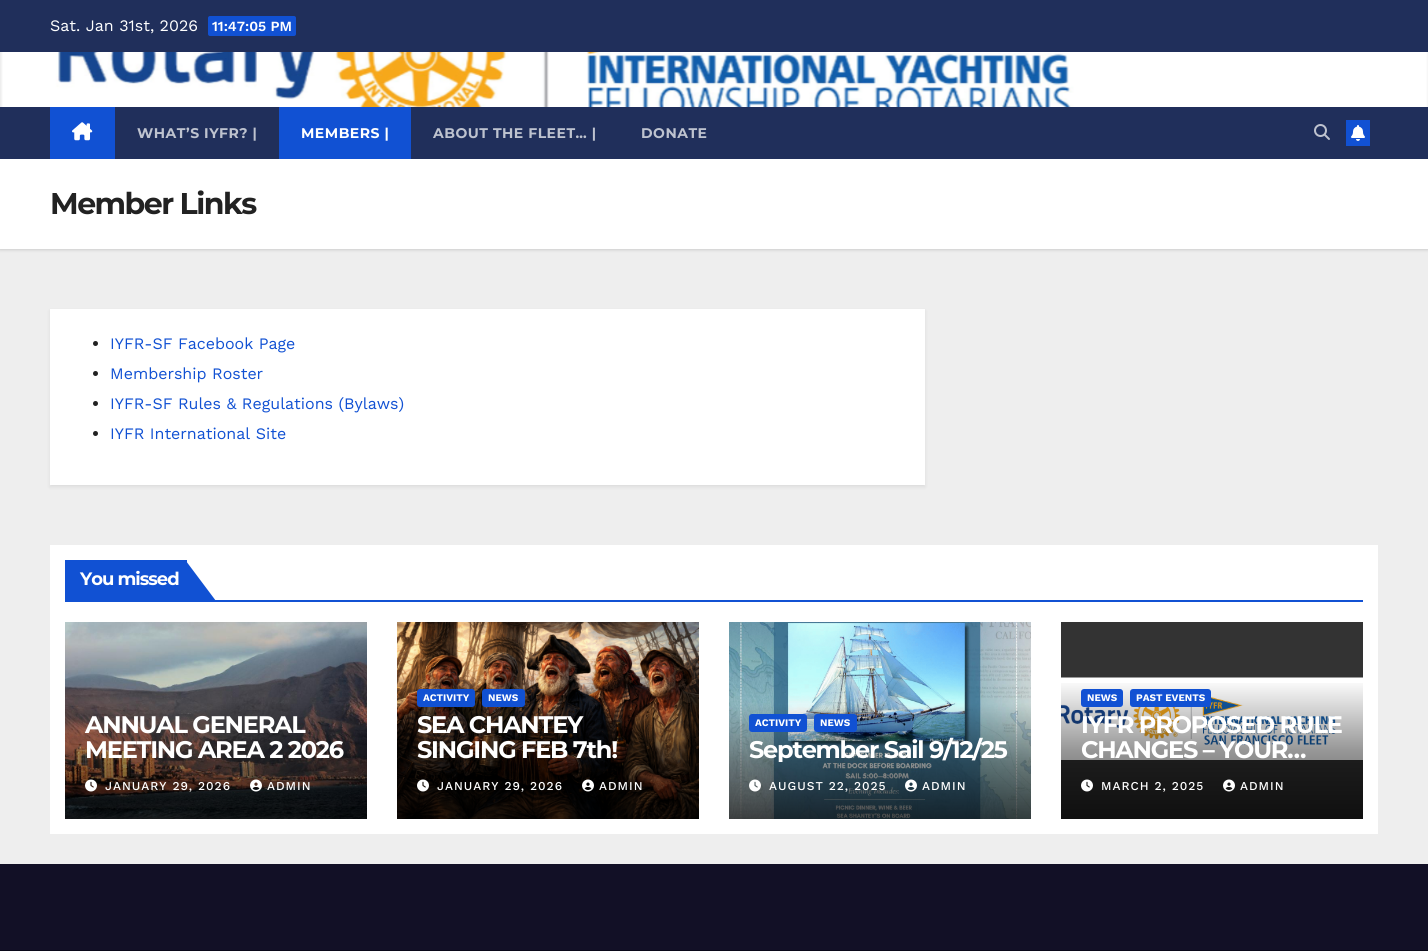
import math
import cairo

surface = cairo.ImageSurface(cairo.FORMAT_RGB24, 1428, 951)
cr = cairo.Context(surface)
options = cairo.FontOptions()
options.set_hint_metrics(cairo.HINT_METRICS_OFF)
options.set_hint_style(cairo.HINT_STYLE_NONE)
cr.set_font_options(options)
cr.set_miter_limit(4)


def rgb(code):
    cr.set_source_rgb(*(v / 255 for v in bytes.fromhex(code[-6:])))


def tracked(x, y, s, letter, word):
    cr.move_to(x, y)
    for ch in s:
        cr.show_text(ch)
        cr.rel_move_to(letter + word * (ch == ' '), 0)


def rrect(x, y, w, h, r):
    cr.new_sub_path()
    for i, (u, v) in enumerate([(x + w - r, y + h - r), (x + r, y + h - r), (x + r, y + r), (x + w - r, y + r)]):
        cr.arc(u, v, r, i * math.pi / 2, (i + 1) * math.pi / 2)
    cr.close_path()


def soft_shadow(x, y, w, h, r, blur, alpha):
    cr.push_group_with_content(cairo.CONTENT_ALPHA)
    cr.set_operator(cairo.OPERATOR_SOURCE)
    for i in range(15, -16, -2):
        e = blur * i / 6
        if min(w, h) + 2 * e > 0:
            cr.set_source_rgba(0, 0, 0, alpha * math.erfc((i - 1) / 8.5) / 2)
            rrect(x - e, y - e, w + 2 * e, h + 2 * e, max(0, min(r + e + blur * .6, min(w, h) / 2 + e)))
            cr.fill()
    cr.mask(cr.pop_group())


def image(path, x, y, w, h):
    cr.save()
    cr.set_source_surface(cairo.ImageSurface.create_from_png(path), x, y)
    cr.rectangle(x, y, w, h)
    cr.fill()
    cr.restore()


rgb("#eeeeee")
cr.paint()
rgb("#202f5b")
cr.rectangle(0, 0, 1428, 52)
cr.fill()
rgb("#1151d3")
rrect(208, 16, 88, 20, 2)
cr.fill()
image("img/1.png", 1, 52, 1427, 55)
rgb("#000000")
soft_shadow(0, 160, 1428, 90, 0, 1.5, 0.15)
rgb("#202f5b")
cr.rectangle(0, 107, 1428, 52)
cr.fill()
rgb("#1151d3")
cr.rectangle(50, 107, 65, 52)
cr.fill()
image("img/2.png", 72, 122, 21, 19)
cr.rectangle(279, 107, 132, 52)
cr.fill()
image("img/3.png", 1314, 124, 16, 16)
cr.rectangle(1346, 120, 24, 26)
cr.fill()
image("img/4.png", 1351, 125, 14, 16)
rgb("#ffffff")
cr.rectangle(0, 159, 1428, 90)
cr.fill()
rgb("#000000")
soft_shadow(50, 311, 875, 176, 0, 2, 0.08)
rgb("#ffffff")
cr.rectangle(50, 309, 875, 176)
cr.fill()
rgb("#222222")
cr.arc(95.5, 343.5, 2.5, 0, 2 * math.pi)
cr.fill()
cr.arc(95.5, 373.5, 2.5, 0, 2 * math.pi)
cr.fill()
cr.arc(95.5, 403.5, 2.5, 0, 2 * math.pi)
cr.fill()
cr.arc(95.5, 433.5, 2.5, 0, 2 * math.pi)
cr.fill()
for x, y, w, h, color in [
    (50, 545, 1328, 289, "#ffffff"),
    (65, 600, 1298, 2, "#1151d3"),
    (65, 560, 122, 40, "#1151d3"),
]:
    rgb(color)
    cr.rectangle(x, y, w, h)
    cr.fill()
cr.new_path()
cr.move_to(216, 601)
cr.line_to(186, 601)
cr.line_to(186, 561)
cr.close_path()
cr.fill()
image("img/5.png", 65, 622, 302, 197)
image("img/6.png", 85, 779, 12, 13)
image("img/7.png", 250, 779, 12, 13)
image("img/8.png", 397, 622, 302, 197)
rrect(417, 689, 58, 18, 3)
cr.fill()
rrect(482, 689, 43, 18, 3)
cr.fill()
image("img/9.png", 417, 779, 12, 13)
image("img/10.png", 582, 779, 12, 13)
image("img/11.png", 729, 622, 302, 197)
rrect(749, 714, 58, 18, 3)
cr.fill()
rrect(814, 714, 43, 18, 3)
cr.fill()
image("img/12.png", 749, 779, 12, 13)
image("img/13.png", 905, 779, 12, 13)
rgb("#333333")
cr.rectangle(1061, 622, 302, 197)
cr.fill()
image("img/14.png", 1061, 677, 302, 83)
gradient = cairo.LinearGradient(1212, 679, 1212, 819)
gradient.add_color_stop_rgba(0, 0, 0, 0, 0)
gradient.add_color_stop_rgba(0.5, 0, 0, 0, 0.4)
gradient.add_color_stop_rgba(1, 0, 0, 0, 0.7)
cr.set_source(gradient)
cr.rectangle(1061, 683, 302, 136)
cr.fill()
rgb("#1151d3")
rrect(1081, 689, 42, 18, 3)
cr.fill()
rrect(1130, 689, 81, 18, 3)
cr.fill()
image("img/15.png", 1081, 779, 12, 13)
image("img/16.png", 1223, 779, 12, 13)
rgb("#121026")
cr.rectangle(0, 864, 1428, 86)
cr.fill()
rgb("#090818")
cr.rectangle(0, 950, 1428, 1)
cr.fill()
cr.select_font_face("Work Sans")
cr.set_font_size(16)
rgb("#ffffff")
cr.move_to(50, 31)
cr.show_text("Sat. Jan 31st, 2026")
cr.select_font_face("Work Sans SemiBold")
cr.set_font_size(14)
cr.move_to(212, 31)
cr.show_text("11:47:05 PM")
cr.select_font_face("Montserrat", cairo.FONT_SLANT_NORMAL, cairo.FONT_WEIGHT_BOLD)
rgb("#bec3cf")
tracked(137, 138, "WHAT’S IYFR? |", 0.5, 0)
rgb("#ffffff")
tracked(301, 138, "MEMBERS |", 0.5, 0)
rgb("#bec3cf")
tracked(433, 138, "ABOUT THE FLEET… |", 0.5, 0)
tracked(641, 138, "DONATE", 0.5, 0)
cr.set_font_size(30)
rgb("#222222")
tracked(50, 214, "Member Links", -1.5, 0)
cr.select_font_face("Work Sans")
cr.set_font_size(16)
rgb("#1151d3")
for x, y, s in [
    (110, 349, "IYFR-SF Facebook Page"),
    (110, 379, "Membership Roster"),
    (110, 409, "IYFR-SF Rules & Regulations (Bylaws)"),
    (110, 439, "IYFR International Site"),
]:
    cr.move_to(x, y)
    cr.show_text(s)
cr.select_font_face("Montserrat", cairo.FONT_SLANT_NORMAL, cairo.FONT_WEIGHT_BOLD)
cr.set_font_size(18)
rgb("#ffffff")
tracked(80, 585, "You missed", -1, 0)
cr.set_font_size(24)
tracked(85, 733, "ANNUAL GENERAL", -1.2, 0)
tracked(85, 758, "MEETING AREA 2 2026", -1.2, 0)
cr.select_font_face("Work Sans Medium")
cr.set_font_size(12)
tracked(105, 790, "JANUARY 29, 2026", 1, 0)
tracked(267, 790, "ADMIN", 1, 0)
cr.select_font_face("Work Sans", cairo.FONT_SLANT_NORMAL, cairo.FONT_WEIGHT_BOLD)
cr.set_font_size(10)
cr.move_to(423, 701)
cr.show_text("ACTIVITY")
cr.move_to(488, 701)
cr.show_text("NEWS")
cr.select_font_face("Montserrat", cairo.FONT_SLANT_NORMAL, cairo.FONT_WEIGHT_BOLD)
cr.set_font_size(24)
tracked(417, 733, "SEA CHANTEY", -1.2, 0)
tracked(417, 758, "SINGING FEB 7th!", -1.2, 0)
cr.select_font_face("Work Sans Medium")
cr.set_font_size(12)
tracked(437, 790, "JANUARY 29, 2026", 1, 0)
tracked(599, 790, "ADMIN", 1, 0)
cr.select_font_face("Work Sans", cairo.FONT_SLANT_NORMAL, cairo.FONT_WEIGHT_BOLD)
cr.set_font_size(10)
cr.move_to(755, 726)
cr.show_text("ACTIVITY")
cr.move_to(820, 726)
cr.show_text("NEWS")
cr.save()
cr.rectangle(749, 737, 262, 25)
cr.clip()
cr.select_font_face("Montserrat", cairo.FONT_SLANT_NORMAL, cairo.FONT_WEIGHT_BOLD)
cr.set_font_size(24)
tracked(749, 758, "September Sail 9/12/25", -1.2, 0)
cr.restore()
cr.select_font_face("Work Sans Medium")
cr.set_font_size(12)
tracked(769, 790, "AUGUST 22, 2025", 1, 0)
tracked(922, 790, "ADMIN", 1, 0)
cr.select_font_face("Work Sans", cairo.FONT_SLANT_NORMAL, cairo.FONT_WEIGHT_BOLD)
cr.set_font_size(10)
cr.move_to(1087, 701)
cr.show_text("NEWS")
cr.move_to(1136, 701)
cr.show_text("PAST EVENTS")
cr.select_font_face("Montserrat", cairo.FONT_SLANT_NORMAL, cairo.FONT_WEIGHT_BOLD)
cr.set_font_size(24)
tracked(1081, 733, "IYFR PROPOSED RULE", -1.2, 0)
tracked(1081, 758, "CHANGES – YOUR…", -1.2, 0)
cr.select_font_face("Work Sans Medium")
cr.set_font_size(12)
tracked(1101, 790, "MARCH 2, 2025", 1, 0)
tracked(1240, 790, "ADMIN", 1, 0)
surface.write_to_png("page.png")
